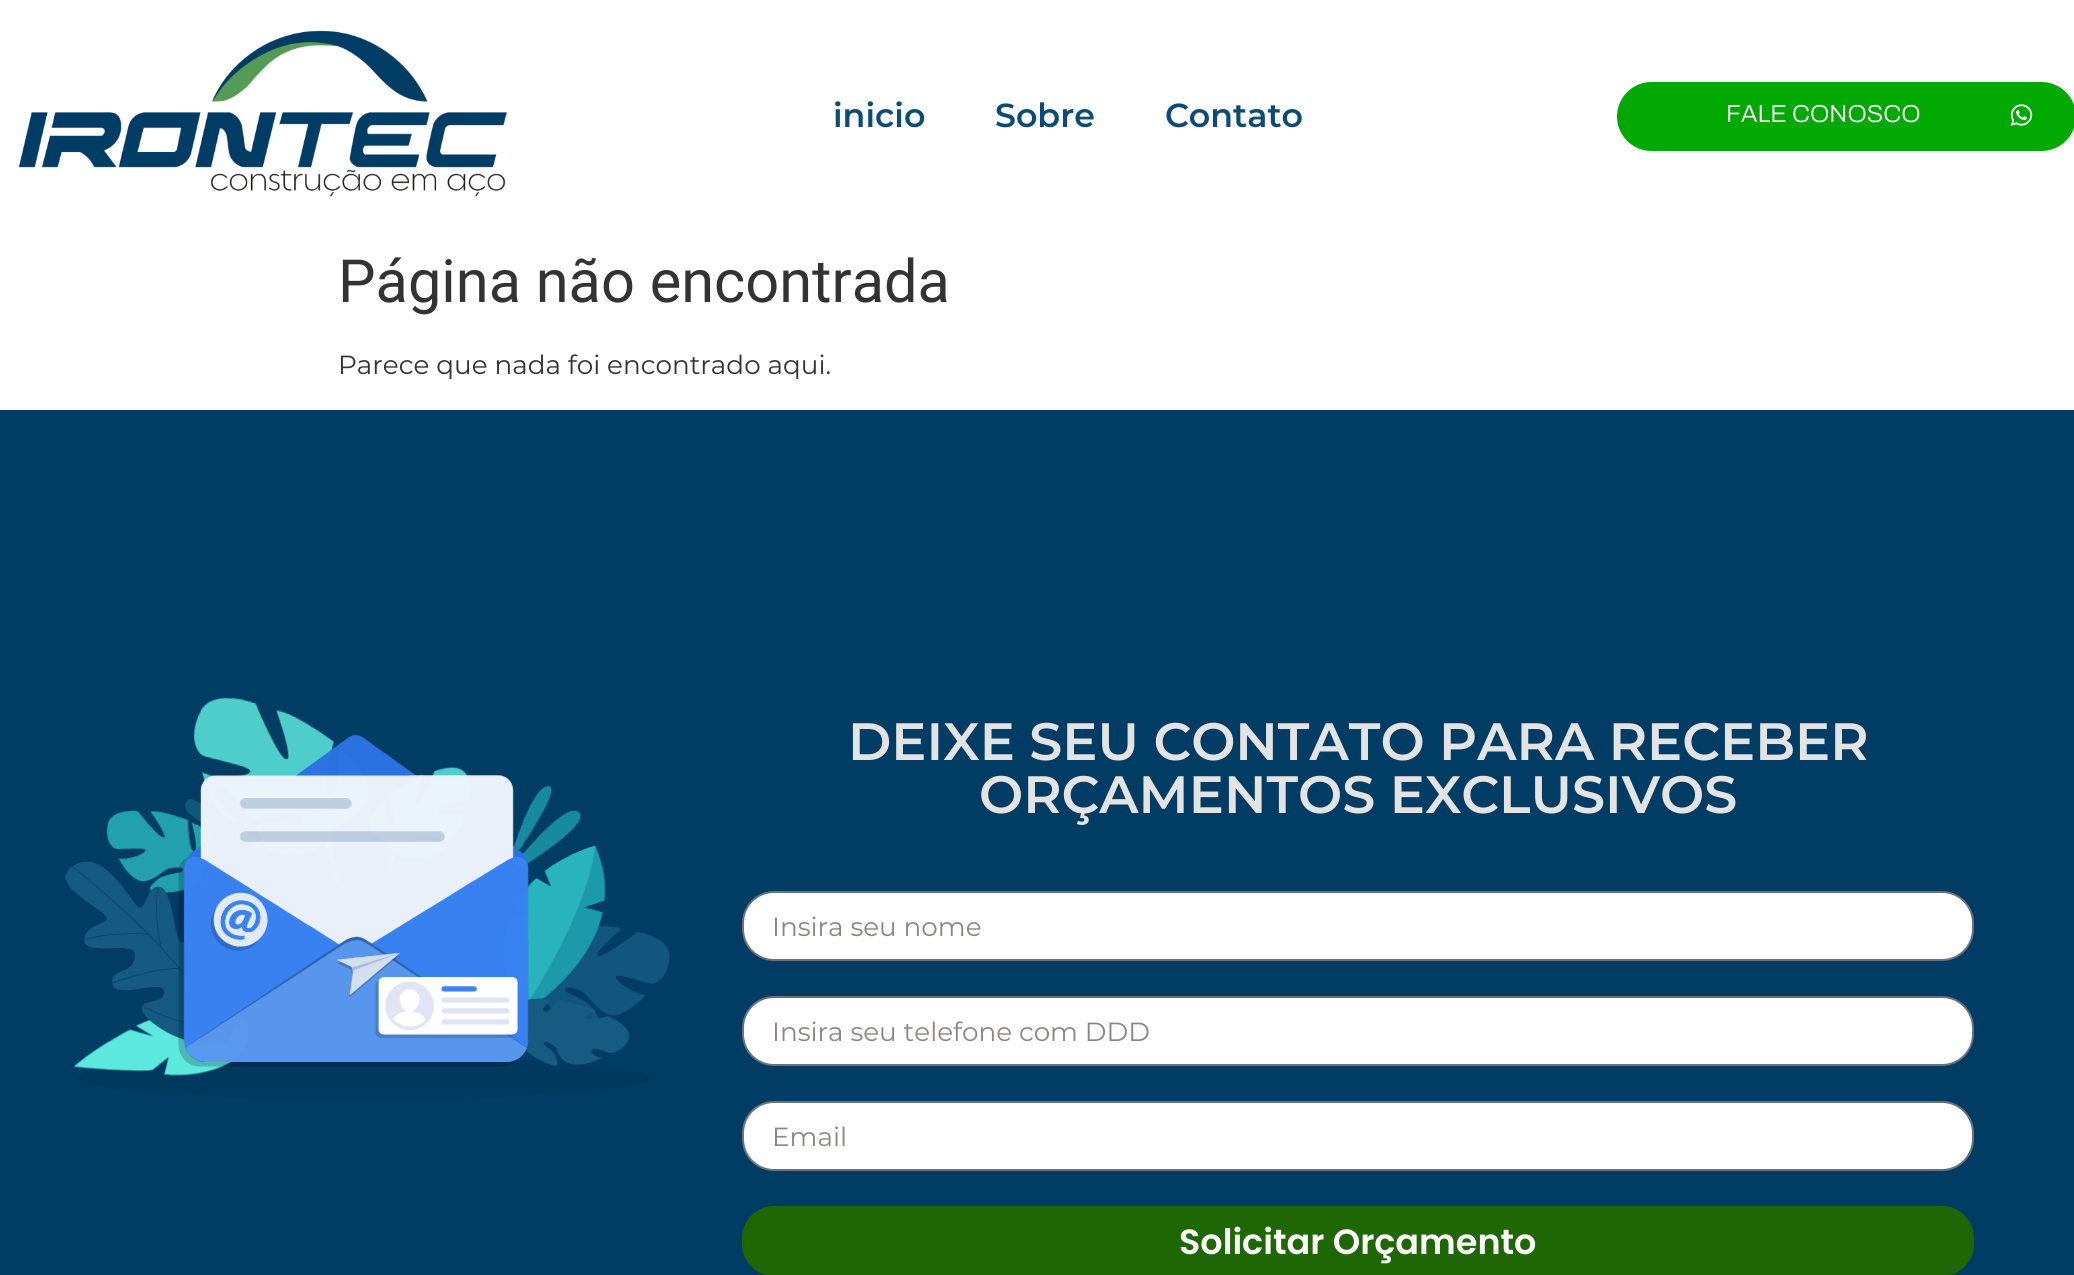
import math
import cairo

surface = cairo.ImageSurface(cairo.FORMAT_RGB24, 2074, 1275)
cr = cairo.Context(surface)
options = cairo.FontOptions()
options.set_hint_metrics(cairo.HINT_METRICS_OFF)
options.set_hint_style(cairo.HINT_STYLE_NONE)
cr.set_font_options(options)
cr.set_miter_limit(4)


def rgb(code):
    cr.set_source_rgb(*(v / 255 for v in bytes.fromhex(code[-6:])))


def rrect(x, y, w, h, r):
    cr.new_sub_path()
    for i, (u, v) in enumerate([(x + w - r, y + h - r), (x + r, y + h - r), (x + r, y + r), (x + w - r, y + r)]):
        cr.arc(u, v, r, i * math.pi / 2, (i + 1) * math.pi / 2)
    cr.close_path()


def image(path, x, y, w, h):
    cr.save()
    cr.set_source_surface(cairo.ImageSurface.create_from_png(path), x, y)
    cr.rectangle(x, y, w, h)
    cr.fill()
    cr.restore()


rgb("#ffffff")
cr.paint()
image("img/1.png", 18, 30, 489, 167)
rgb("#03a903")
rrect(1617, 82, 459, 69, 34.5)
cr.fill()
image("img/2.png", 2010, 104, 23, 22)
rgb("#003c64")
cr.rectangle(0, 410, 2074, 865)
cr.fill()
image("img/3.png", 65, 697, 605, 401)
rgb("#ffffff")
rrect(743, 892, 1230, 68, 31)
cr.fill_preserve()
rgb("#69727d")
cr.stroke()
rgb("#ffffff")
rrect(743, 997, 1230, 68, 31)
cr.fill_preserve()
rgb("#69727d")
cr.stroke()
rgb("#ffffff")
rrect(743, 1102, 1230, 68, 31)
cr.fill_preserve()
rgb("#69727d")
cr.stroke()
rgb("#1e6704")
rrect(742, 1206, 1232, 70, 32)
cr.fill()
cr.select_font_face("Montserrat SemiBold")
cr.set_font_size(33.25)
rgb("#0c4b76")
for x, y, s in [
    (833, 127, "inicio"),
    (995, 127, "Sobre"),
    (1165, 127, "Contato"),
]:
    cr.move_to(x, y)
    cr.show_text(s)
cr.select_font_face("Archivo Light")
cr.set_font_size(24.5)
rgb("#ffffff")
cr.move_to(1726, 122)
cr.show_text("FALE CONOSCO")
cr.select_font_face("Roboto")
cr.set_font_size(59.5)
rgb("#333333")
cr.move_to(338, 302)
cr.show_text("Página não encontrada")
cr.select_font_face("Montserrat")
cr.set_font_size(26.25)
cr.move_to(338, 374)
cr.show_text("Parece que nada foi encontrado aqui.")
cr.select_font_face("Montserrat SemiBold")
cr.set_font_size(52.5)
rgb("#e3e3e3")
cr.move_to(848, 760)
cr.show_text("DEIXE SEU CONTATO PARA RECEBER")
cr.move_to(979, 813)
cr.show_text("ORÇAMENTOS EXCLUSIVOS")
cr.select_font_face("Montserrat")
cr.set_font_size(26.25)
rgb("#8c8585")
for x, y, s in [
    (772, 936, "Insira seu nome"),
    (772, 1041, "Insira seu telefone com DDD"),
    (772, 1146, "Email"),
]:
    cr.move_to(x, y)
    cr.show_text(s)
cr.select_font_face("Poppins SemiBold")
cr.set_font_size(35)
rgb("#ffffff")
cr.move_to(1179, 1254)
cr.show_text("Solicitar Orçamento")
surface.write_to_png("page.png")
